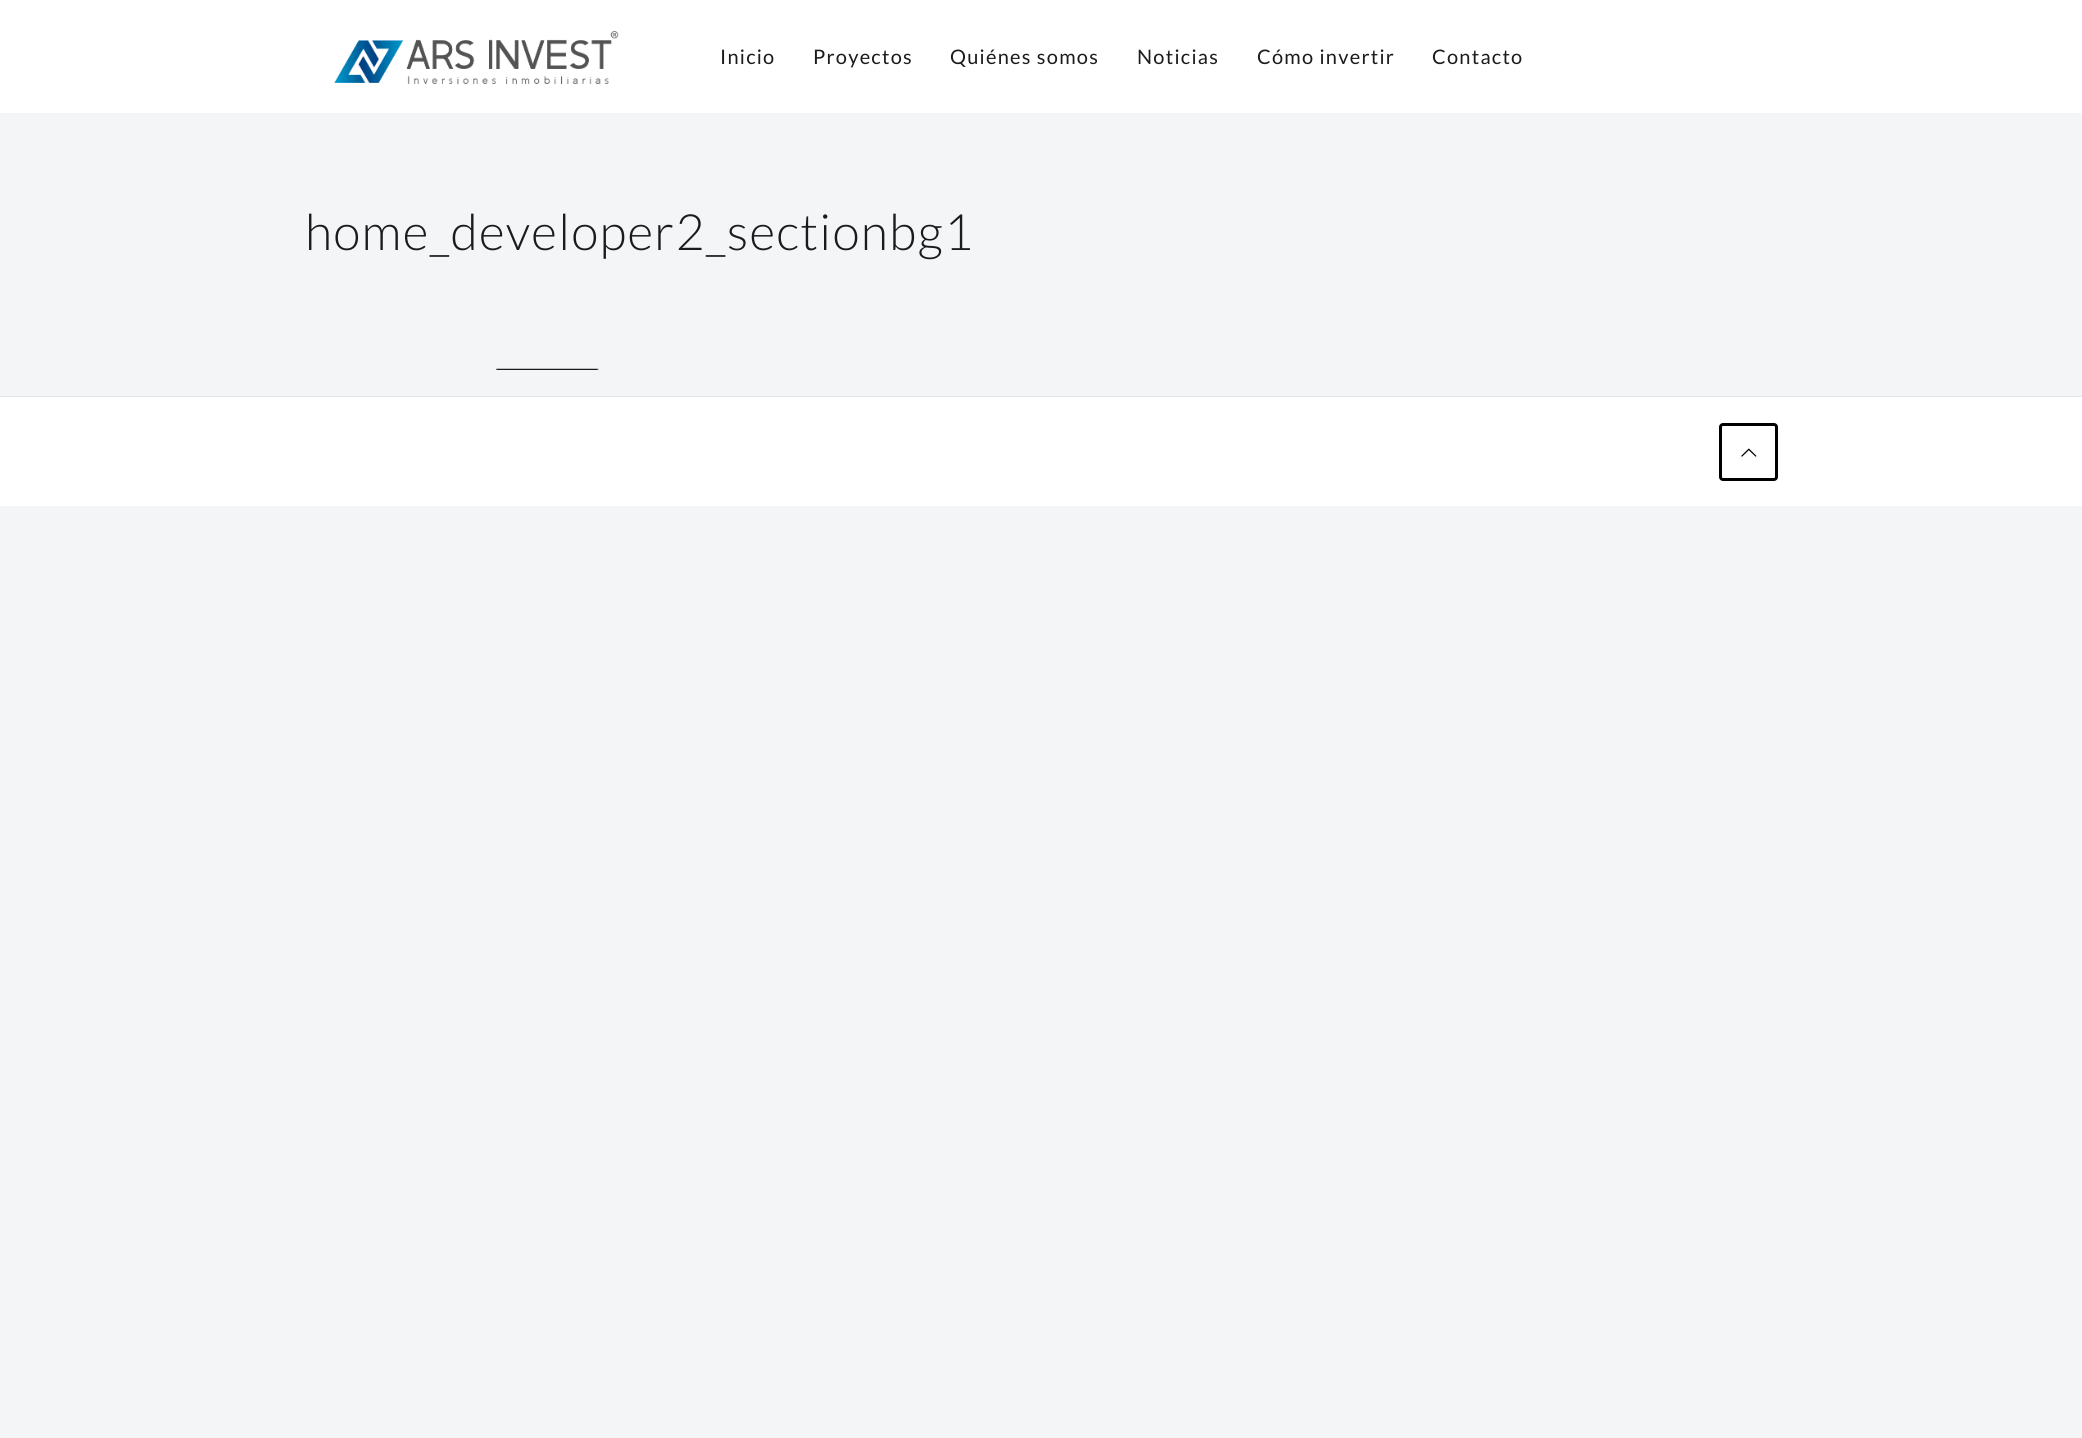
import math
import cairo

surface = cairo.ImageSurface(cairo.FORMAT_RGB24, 2082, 1438)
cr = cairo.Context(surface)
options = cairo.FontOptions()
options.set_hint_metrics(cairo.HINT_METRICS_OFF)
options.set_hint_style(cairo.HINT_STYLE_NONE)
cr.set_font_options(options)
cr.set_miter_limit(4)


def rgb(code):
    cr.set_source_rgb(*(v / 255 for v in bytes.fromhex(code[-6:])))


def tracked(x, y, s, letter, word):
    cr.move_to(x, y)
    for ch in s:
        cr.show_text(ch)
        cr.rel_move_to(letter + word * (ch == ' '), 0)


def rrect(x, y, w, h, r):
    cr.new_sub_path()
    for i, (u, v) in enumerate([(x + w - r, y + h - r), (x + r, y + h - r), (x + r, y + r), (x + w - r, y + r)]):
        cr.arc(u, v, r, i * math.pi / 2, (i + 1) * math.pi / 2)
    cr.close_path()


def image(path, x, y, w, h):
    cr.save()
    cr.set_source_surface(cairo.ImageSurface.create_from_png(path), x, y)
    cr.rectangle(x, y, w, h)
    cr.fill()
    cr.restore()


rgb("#f4f5f6")
cr.paint()
rgb("#ffffff")
cr.rectangle(0, 0, 2082, 113)
cr.fill()
image("img/1.png", 334, 31, 285, 53)
image("img/2.png", 496, 368, 103, 2)
cr.rectangle(0, 397, 2082, 109)
cr.fill()
rgb("#e6e6e6")
cr.rectangle(0, 396, 2082, 1)
cr.fill()
rrect(1720.5, 424.5, 56, 55, 2.5)
rgb("#000000")
cr.set_line_width(3)
cr.stroke()
image("img/3.png", 1741, 448, 16, 9)
cr.select_font_face("Lato")
cr.set_font_size(20)
rgb("#1b1b1c")
for x, y, s in [
    (720, 64, "Inicio"),
    (813, 64, "Proyectos"),
    (950, 64, "Quiénes somos"),
    (1137, 64, "Noticias"),
    (1257, 64, "Cómo invertir"),
    (1432, 64, "Contacto"),
]:
    tracked(x, y, s, 1.25, 0)
cr.select_font_face("Lato Light")
cr.set_font_size(50)
tracked(305, 250, "home_developer2_sectionbg1", 1.25, 0)
surface.write_to_png("page.png")
